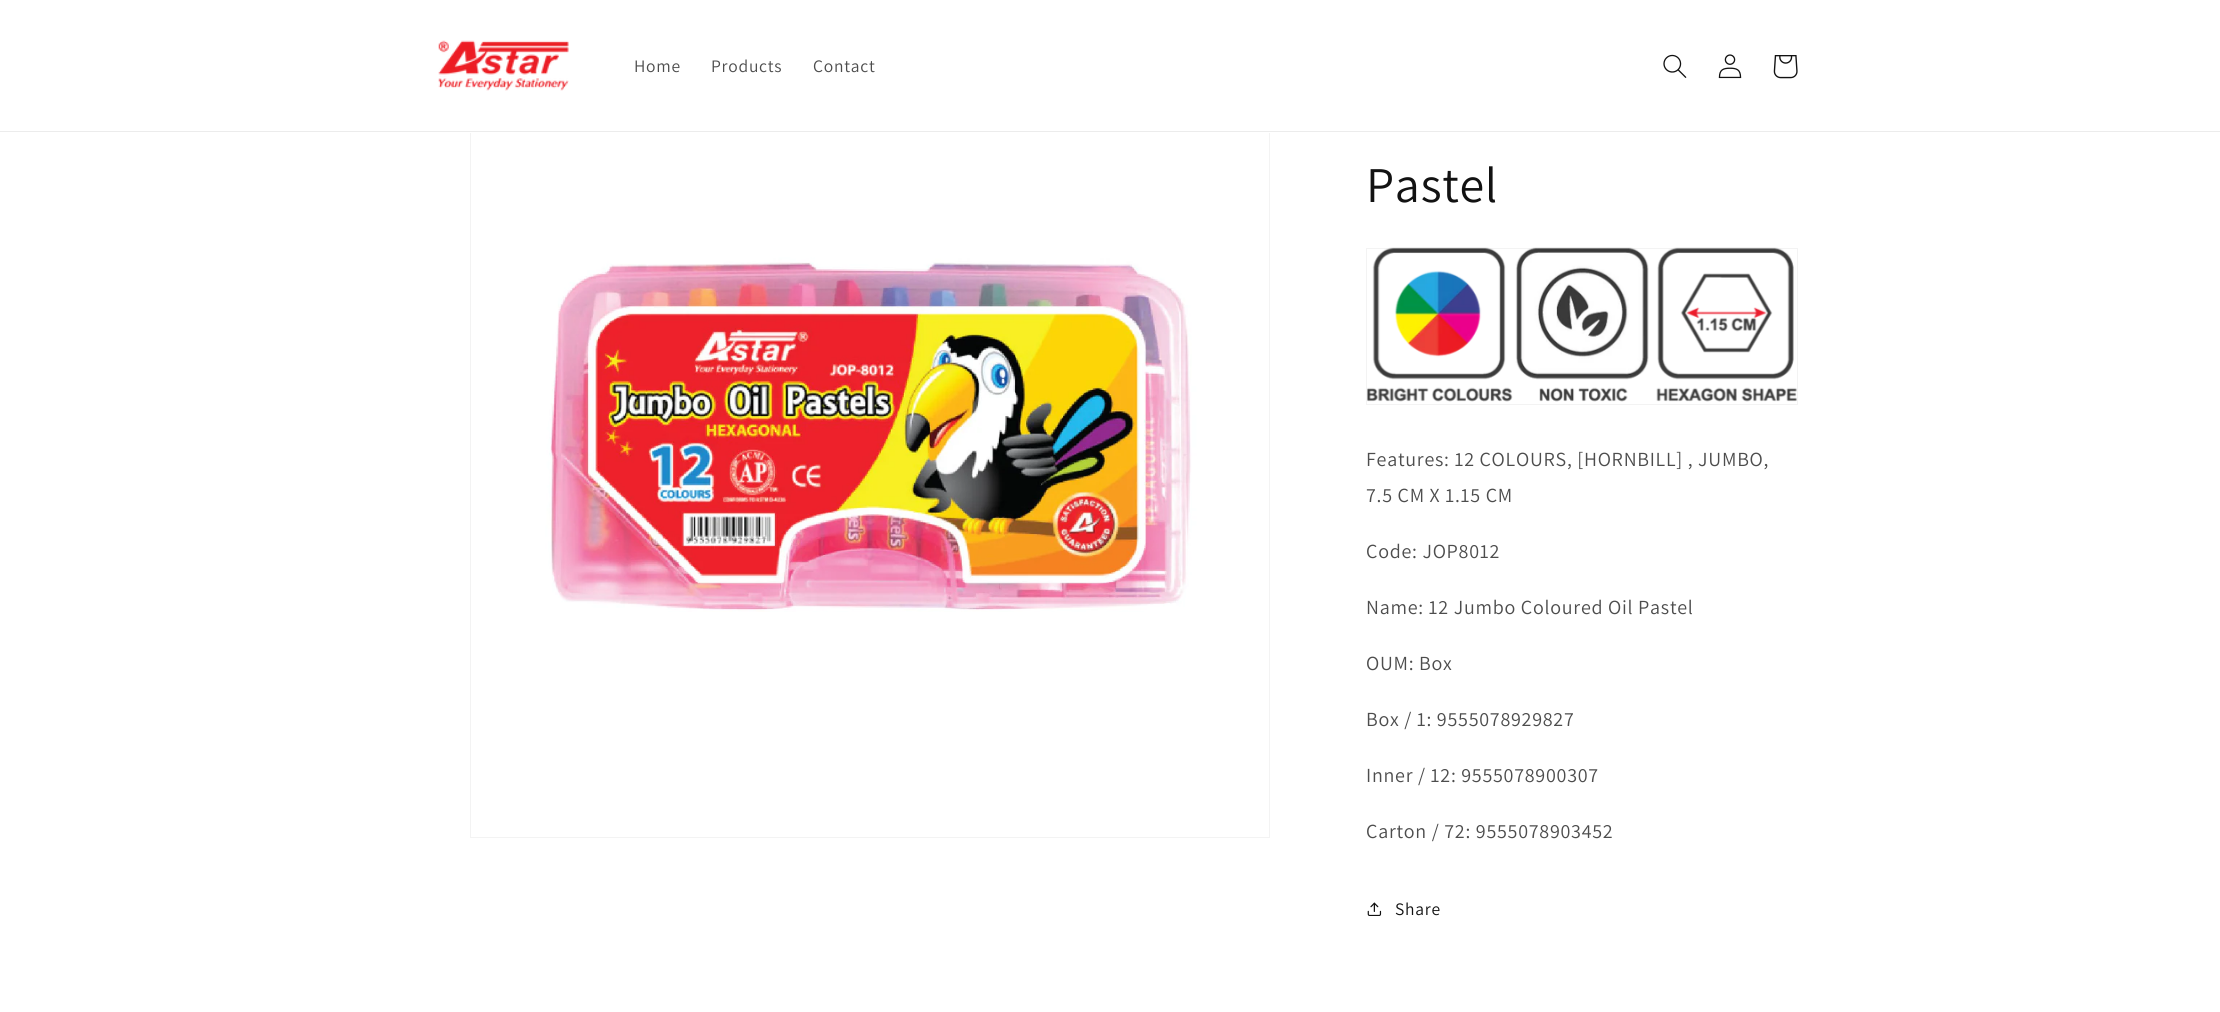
import math
import cairo

surface = cairo.ImageSurface(cairo.FORMAT_RGB24, 2220, 1012)
cr = cairo.Context(surface)
options = cairo.FontOptions()
options.set_hint_metrics(cairo.HINT_METRICS_OFF)
options.set_hint_style(cairo.HINT_STYLE_NONE)
cr.set_font_options(options)
cr.set_miter_limit(4)


def rgb(code):
    cr.set_source_rgb(*(v / 255 for v in bytes.fromhex(code[-6:])))


def tracked(x, y, s, letter, word):
    cr.move_to(x, y)
    for ch in s:
        cr.show_text(ch)
        cr.rel_move_to(letter + word * (ch == ' '), 0)


def image(path, x, y, w, h):
    cr.save()
    cr.set_source_surface(cairo.ImageSurface.create_from_png(path), x, y)
    cr.rectangle(x, y, w, h)
    cr.fill()
    cr.restore()


rgb("#ffffff")
cr.paint()
cr.rectangle(470.5, 38.5, 799, 799)
rgb("#f3f3f3")
cr.set_line_width(1)
cr.stroke()
rgb("#ffffff")
cr.rectangle(470, 38, 800, 95)
cr.fill()
rgb("#ececec")
cr.rectangle(0, 131, 2220, 1)
cr.fill()
image("img/1.png", 438, 40, 131, 51)
image("img/2.png", 1663, 54, 24, 24)
image("img/3.png", 1718, 54, 24, 25)
image("img/4.png", 1773, 55, 25, 24)
image("img/5.png", 471, 133, 798, 479)
cr.rectangle(1366.5, 248.5, 431, 156)
rgb("#f3f3f3")
cr.stroke()
image("img/6.png", 1367, 247, 430, 155)
image("img/7.png", 1367, 902, 15, 14)
cr.select_font_face("Assistant")
cr.set_font_size(17.5)
rgb("#4d4d4d")
for x, y, s in [
    (634, 72, "Home"),
    (711, 72, "Products"),
    (813, 72, "Contact"),
]:
    tracked(x, y, s, 0.75, 0)
cr.set_font_size(50)
rgb("#121212")
tracked(1366, 202, "Pastel", 0.75, 0)
cr.set_font_size(20)
rgb("#4d4d4d")
for x, y, s in [
    (1366, 466, "Features: 12 COLOURS, [HORNBILL] , JUMBO,"),
    (1366, 502, "7.5 CM X 1.15 CM"),
    (1366, 558, "Code: JOP8012"),
    (1366, 614, "Name: 12 Jumbo Coloured Oil Pastel"),
    (1366, 670, "OUM: Box"),
    (1366, 726, "Box / 1: 9555078929827"),
    (1366, 782, "Inner / 12: 9555078900307"),
    (1366, 838, "Carton / 72: 9555078903452"),
]:
    tracked(x, y, s, 0.75, 0)
cr.set_font_size(17.5)
rgb("#121212")
tracked(1395, 915, "Share", 0.75, 0)
surface.write_to_png("page.png")
